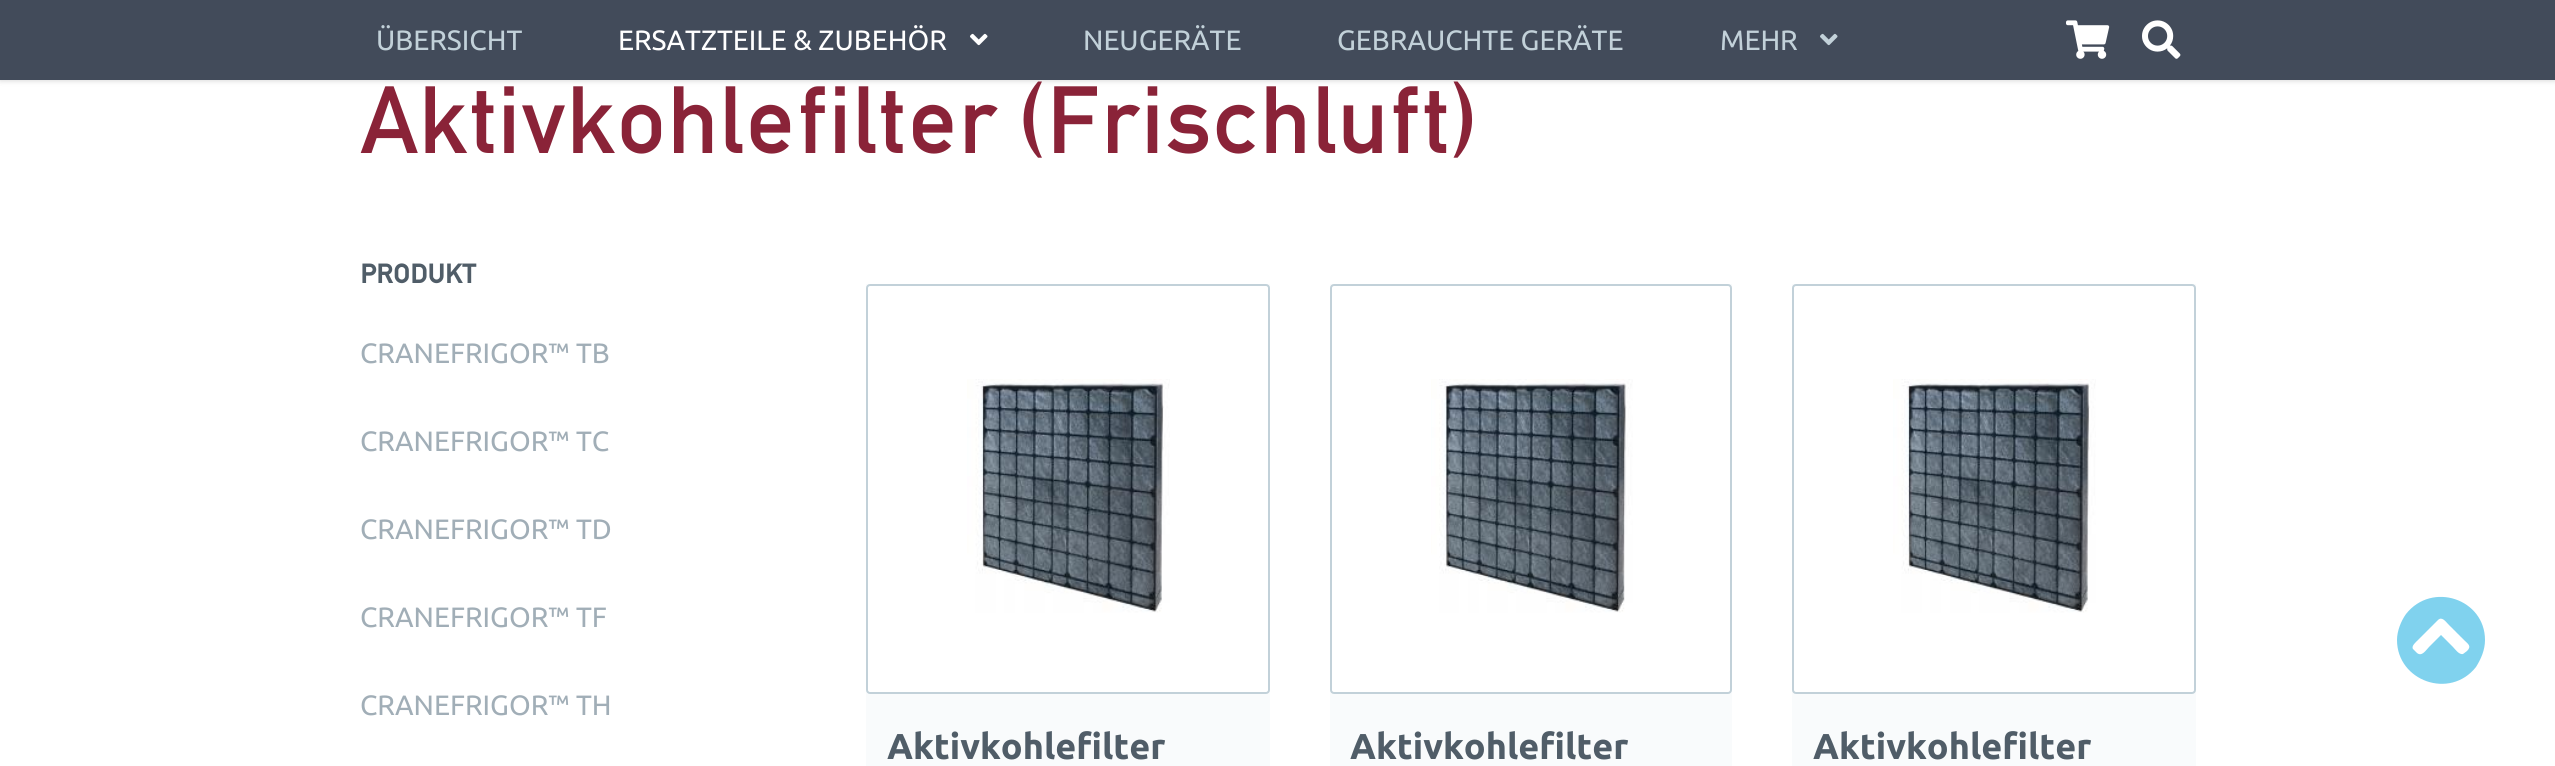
import math
import cairo

surface = cairo.ImageSurface(cairo.FORMAT_RGB24, 2555, 766)
cr = cairo.Context(surface)
options = cairo.FontOptions()
options.set_hint_metrics(cairo.HINT_METRICS_OFF)
options.set_hint_style(cairo.HINT_STYLE_NONE)
cr.set_font_options(options)
cr.set_miter_limit(4)


def rgb(code):
    cr.set_source_rgb(*(v / 255 for v in bytes.fromhex(code[-6:])))


def rrect(x, y, w, h, r):
    cr.new_sub_path()
    for i, (u, v) in enumerate([(x + w - r, y + h - r), (x + r, y + h - r), (x + r, y + r), (x + w - r, y + r)]):
        cr.arc(u, v, r, i * math.pi / 2, (i + 1) * math.pi / 2)
    cr.close_path()


def soft_shadow(x, y, w, h, r, blur, alpha):
    cr.push_group_with_content(cairo.CONTENT_ALPHA)
    cr.set_operator(cairo.OPERATOR_SOURCE)
    for i in range(15, -16, -2):
        e = blur * i / 6
        if min(w, h) + 2 * e > 0:
            cr.set_source_rgba(0, 0, 0, alpha * math.erfc((i - 1) / 8.5) / 2)
            rrect(x - e, y - e, w + 2 * e, h + 2 * e, max(0, min(r + e + blur * .6, min(w, h) / 2 + e)))
            cr.fill()
    cr.mask(cr.pop_group())


def image(path, x, y, w, h):
    cr.save()
    cr.set_source_surface(cairo.ImageSurface.create_from_png(path), x, y)
    cr.rectangle(x, y, w, h)
    cr.fill()
    cr.restore()


rgb("#ffffff")
cr.paint()
rgb("#000000")
soft_shadow(0, 0, 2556, 80, 0, 3, 0.2)
rgb("#424b5a")
cr.rectangle(0, 0, 2555, 80)
cr.fill()
image("img/1.png", 970, 33, 18, 13)
image("img/2.png", 1820, 33, 18, 13)
image("img/3.png", 2066, 20, 44, 39)
image("img/4.png", 2142, 20, 39, 39)
rgb("#f9fbfc")
cr.rectangle(866, 284, 404, 482)
cr.fill()
rgb("#ffffff")
rrect(867, 285, 402, 408, 3)
cr.fill_preserve()
rgb("#c2d1d9")
cr.stroke()
image("img/5.png", 967, 379, 203, 234)
rgb("#f9fbfc")
cr.rectangle(1330, 284, 402, 482)
cr.fill()
rgb("#ffffff")
rrect(1331, 285, 400, 408, 3)
cr.fill_preserve()
rgb("#c2d1d9")
cr.stroke()
image("img/6.png", 1431, 379, 202, 234)
rgb("#f9fbfc")
cr.rectangle(1792, 284, 404, 482)
cr.fill()
rgb("#ffffff")
rrect(1793, 285, 402, 408, 3)
cr.fill_preserve()
rgb("#c2d1d9")
cr.stroke()
image("img/5.png", 1893, 379, 203, 234)
rgb("#80d2ee")
cr.new_path()
cr.move_to(2397, 640)
cr.curve_to(2397, 631, 2401, 621, 2406, 614)
cr.curve_to(2432, 581, 2485, 599, 2485, 640)
cr.curve_to(2485, 650, 2481, 659, 2476, 667)
cr.curve_to(2450, 700, 2397, 681, 2397, 640)
cr.close_path()
cr.move_to(2438, 620)
cr.line_to(2418, 640)
cr.curve_to(2416, 642, 2411, 646, 2413, 649)
cr.line_to(2417, 653)
cr.curve_to(2422, 657, 2426, 650, 2429, 647)
cr.line_to(2441, 635)
cr.line_to(2453, 647)
cr.curve_to(2455, 649, 2459, 655, 2463, 654)
cr.line_to(2467, 651)
cr.curve_to(2472, 646, 2468, 644, 2464, 640)
cr.line_to(2448, 624)
cr.curve_to(2446, 622, 2442, 616, 2438, 620)
cr.close_path()
cr.fill()
cr.select_font_face("Ubuntu")
cr.set_font_size(28)
rgb("#c2d1d9")
cr.move_to(376, 50)
cr.show_text("ÜBERSICHT")
rgb("#ffffff")
cr.move_to(618, 50)
cr.show_text("ERSATZTEILE & ZUBEHÖR")
rgb("#c2d1d9")
for x, y, s in [
    (1083, 50, "NEUGERÄTE"),
    (1337, 50, "GEBRAUCHTE GERÄTE"),
    (1720, 50, "MEHR"),
]:
    cr.move_to(x, y)
    cr.show_text(s)
cr.select_font_face("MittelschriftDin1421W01")
cr.set_font_size(100)
rgb("#8a2338")
cr.move_to(360, 153)
cr.show_text("Aktivkohlefilter (Frischluft)")
cr.select_font_face("MittelschriftDin1421W01", cairo.FONT_SLANT_NORMAL, cairo.FONT_WEIGHT_BOLD)
cr.set_font_size(28)
rgb("#505d68")
cr.move_to(360, 283)
cr.show_text("PRODUKT")
cr.select_font_face("Ubuntu")
rgb("#a1aeb7")
for x, y, s in [
    (360, 363, "CRANEFRIGOR™ TB"),
    (360, 451, "CRANEFRIGOR™ TC"),
    (360, 539, "CRANEFRIGOR™ TD"),
    (360, 627, "CRANEFRIGOR™ TF"),
    (360, 715, "CRANEFRIGOR™ TH"),
]:
    cr.move_to(x, y)
    cr.show_text(s)
cr.select_font_face("Ubuntu", cairo.FONT_SLANT_NORMAL, cairo.FONT_WEIGHT_BOLD)
cr.set_font_size(36)
rgb("#505d68")
for x, y, s in [
    (887, 759, "Aktivkohlefilter"),
    (1350, 759, "Aktivkohlefilter"),
    (1813, 759, "Aktivkohlefilter"),
]:
    cr.move_to(x, y)
    cr.show_text(s)
surface.write_to_png("page.png")
